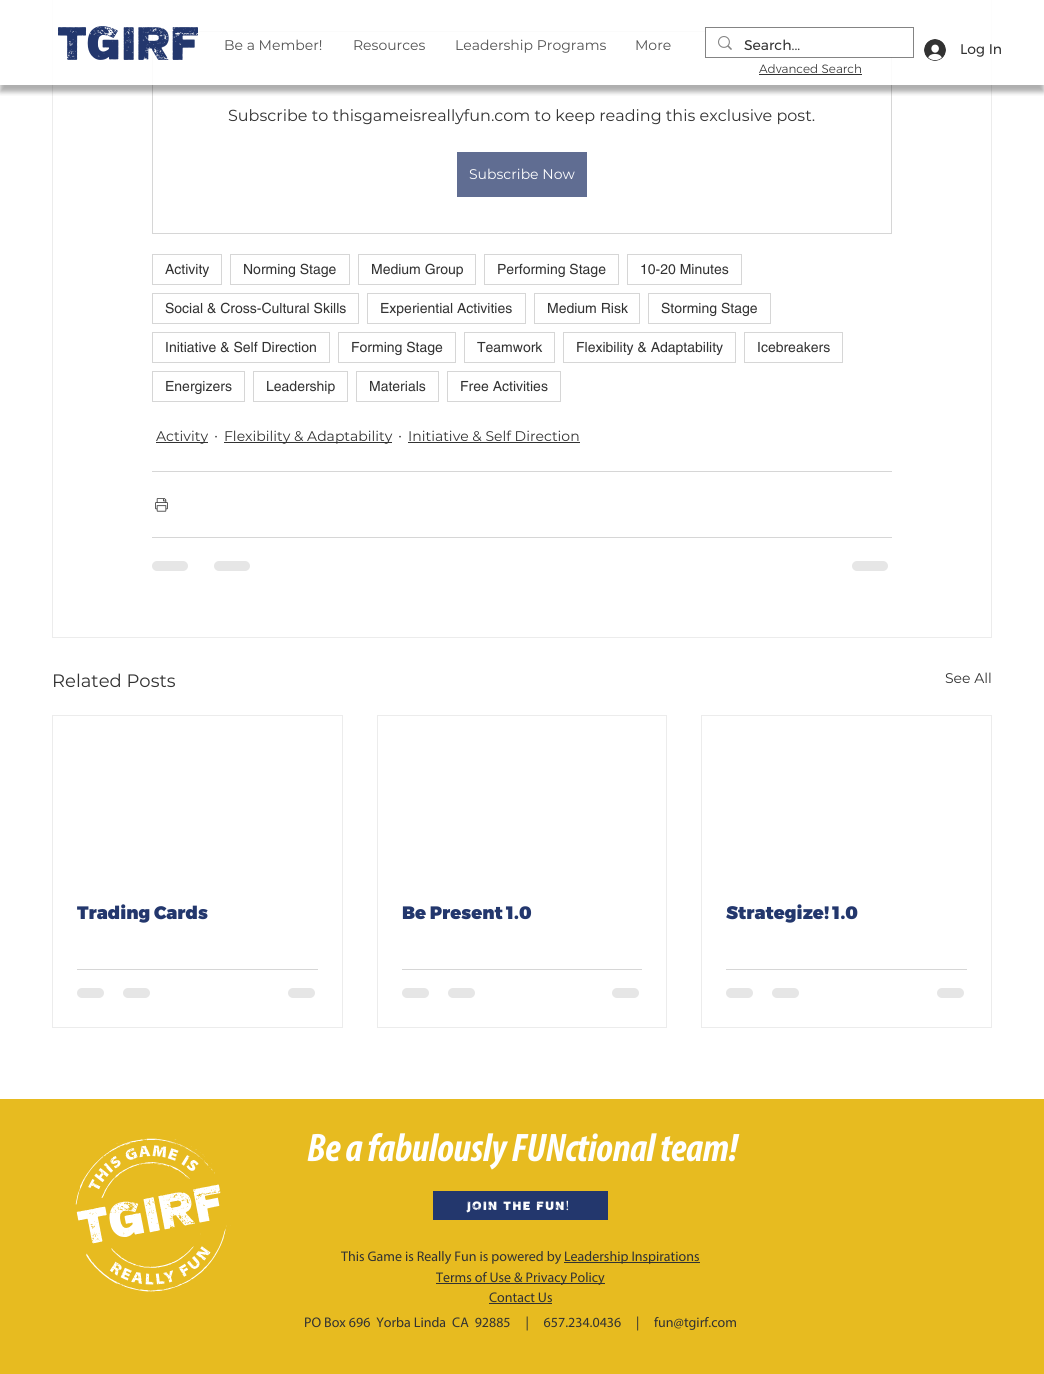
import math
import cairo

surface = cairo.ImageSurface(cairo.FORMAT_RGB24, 1044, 1374)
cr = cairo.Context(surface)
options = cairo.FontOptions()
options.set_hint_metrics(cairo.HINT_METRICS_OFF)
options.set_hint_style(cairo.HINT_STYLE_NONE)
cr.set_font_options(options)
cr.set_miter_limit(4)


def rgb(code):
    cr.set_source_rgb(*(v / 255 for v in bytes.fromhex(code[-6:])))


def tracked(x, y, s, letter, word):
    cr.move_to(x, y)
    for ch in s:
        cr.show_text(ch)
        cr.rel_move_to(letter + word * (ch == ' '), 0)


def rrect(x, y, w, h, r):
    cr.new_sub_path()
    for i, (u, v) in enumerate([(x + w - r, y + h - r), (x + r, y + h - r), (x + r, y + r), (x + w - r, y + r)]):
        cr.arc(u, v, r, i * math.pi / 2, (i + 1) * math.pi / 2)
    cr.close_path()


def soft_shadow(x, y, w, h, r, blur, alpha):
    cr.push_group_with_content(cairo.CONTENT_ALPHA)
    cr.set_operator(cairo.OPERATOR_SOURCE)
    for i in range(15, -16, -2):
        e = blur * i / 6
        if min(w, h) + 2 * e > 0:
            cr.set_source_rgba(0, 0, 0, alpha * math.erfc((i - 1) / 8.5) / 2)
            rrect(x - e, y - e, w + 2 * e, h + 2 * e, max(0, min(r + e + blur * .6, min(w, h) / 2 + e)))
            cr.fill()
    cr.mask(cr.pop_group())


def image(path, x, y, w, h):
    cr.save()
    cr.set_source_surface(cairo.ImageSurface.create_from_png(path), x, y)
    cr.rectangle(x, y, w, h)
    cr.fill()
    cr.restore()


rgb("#ffffff")
cr.paint()
cr.rectangle(52.5, -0.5, 939, 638)
rgb("#ececec")
cr.set_line_width(1)
cr.stroke()
cr.rectangle(152.5, 31.5, 739, 202)
rgb("#d6d6d6")
cr.stroke()
cr.save()
cr.rectangle(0, 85, 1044, 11)
cr.clip()
rgb("#000000")
soft_shadow(0, 7, 1044, 85, 0, 2.5, 0.32)
cr.restore()
cr.set_source_rgba(1, 1, 1, 0.9)
cr.rectangle(52, 0, 940, 85)
cr.fill()
image("img/1.png", 58, 26, 140, 34)
image("img/2.png", 924, 39, 22, 22)
cr.rectangle(705.5, 27.5, 208, 30)
cr.set_source_rgba(0.196, 0.196, 0.196, 0.6)
cr.stroke()
rgb("#ffffff")
cr.rectangle(706, 31, 186, 26)
cr.fill()
image("img/3.png", 718, 36, 14, 14)
rgb("#323232")
cr.rectangle(759, 74, 103, 1)
cr.fill()
rgb("#606d92")
cr.rectangle(457, 152, 130, 45)
cr.fill()
cr.rectangle(152.5, 254.5, 69, 30)
rgb("#d6d6d6")
cr.stroke()
cr.rectangle(230.5, 254.5, 119, 30)
cr.stroke()
cr.rectangle(358.5, 254.5, 117, 30)
cr.stroke()
cr.rectangle(484.5, 254.5, 134, 30)
cr.stroke()
cr.rectangle(627.5, 254.5, 114, 30)
cr.stroke()
cr.rectangle(152.5, 293.5, 206, 30)
cr.stroke()
cr.rectangle(367.5, 293.5, 158, 30)
cr.stroke()
cr.rectangle(534.5, 293.5, 105, 30)
cr.stroke()
cr.rectangle(648.5, 293.5, 122, 30)
cr.stroke()
cr.rectangle(152.5, 332.5, 177, 30)
cr.stroke()
cr.rectangle(338.5, 332.5, 117, 30)
cr.stroke()
cr.rectangle(464.5, 332.5, 90, 30)
cr.stroke()
cr.rectangle(563.5, 332.5, 172, 30)
cr.stroke()
cr.rectangle(744.5, 332.5, 98, 30)
cr.stroke()
cr.rectangle(152.5, 371.5, 92, 30)
cr.stroke()
cr.rectangle(253.5, 371.5, 94, 30)
cr.stroke()
cr.rectangle(356.5, 371.5, 82, 30)
cr.stroke()
cr.rectangle(447.5, 371.5, 113, 30)
cr.stroke()
for x, y, w, h, color in [
    (156, 442, 52, 1, "#323232"),
    (224, 442, 168, 1, "#323232"),
    (408, 442, 172, 1, "#323232"),
    (152, 471, 740, 1, "#d6d6d6"),
]:
    rgb(color)
    cr.rectangle(x, y, w, h)
    cr.fill()
image("img/4.png", 155, 498, 13, 14)
cr.rectangle(152, 537, 740, 1)
cr.fill()
rgb("#e6e6e6")
rrect(152, 561, 36, 10, 5)
cr.fill()
rrect(214, 561, 36, 10, 5)
cr.fill()
rrect(852, 561, 36, 10, 5)
cr.fill()
cr.rectangle(52.5, 715.5, 290, 312)
rgb("#ececec")
cr.stroke()
rgb("#d6d6d6")
cr.rectangle(77, 969, 241, 1)
cr.fill()
rgb("#e6e6e6")
rrect(77, 988, 27, 10, 5)
cr.fill()
rrect(123, 988, 27, 10, 5)
cr.fill()
rrect(288, 988, 27, 10, 5)
cr.fill()
cr.rectangle(377.5, 715.5, 289, 312)
rgb("#ececec")
cr.stroke()
rgb("#d6d6d6")
cr.rectangle(402, 969, 240, 1)
cr.fill()
rgb("#e6e6e6")
rrect(402, 988, 27, 10, 5)
cr.fill()
rrect(448, 988, 27, 10, 5)
cr.fill()
rrect(612, 988, 27, 10, 5)
cr.fill()
cr.rectangle(701.5, 715.5, 290, 312)
rgb("#ececec")
cr.stroke()
rgb("#d6d6d6")
cr.rectangle(726, 969, 241, 1)
cr.fill()
rgb("#e6e6e6")
rrect(726, 988, 27, 10, 5)
cr.fill()
rrect(772, 988, 27, 10, 5)
cr.fill()
rrect(937, 988, 27, 10, 5)
cr.fill()
rgb("#e7bb20")
cr.rectangle(0, 1099, 1044, 275)
cr.fill()
image("img/5.png", 75, 1138, 156, 154)
for x, y, w, h, color in [
    (433, 1191, 175, 29, "#23376d"),
    (564, 1262, 136, 1, "#323232"),
    (436, 1283, 169, 1, "#323232"),
    (489, 1303, 63, 1, "#323232"),
]:
    rgb(color)
    cr.rectangle(x, y, w, h)
    cr.fill()
cr.select_font_face("Montserrat")
cr.set_font_size(14)
rgb("#525252")
for x, y, s in [
    (224, 50, "Be a Member!"),
    (353, 50, "Resources"),
    (455, 50, "Leadership Programs"),
    (635, 50, "More"),
]:
    cr.move_to(x, y)
    cr.show_text(s)
cr.select_font_face("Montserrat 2")
rgb("#323232")
cr.move_to(960, 54)
cr.show_text("Log In")
cr.move_to(744, 50)
cr.show_text("Search...")
cr.select_font_face("Montserrat Light")
cr.set_font_size(12)
cr.move_to(759, 73)
cr.show_text("Advanced Search")
cr.select_font_face("Montserrat")
cr.set_font_size(16)
cr.move_to(228, 121)
cr.show_text("Subscribe to thisgameisreallyfun.com to keep reading this exclusive post.")
cr.set_font_size(14)
rgb("#ffffff")
cr.move_to(469, 179)
cr.show_text("Subscribe Now")
cr.select_font_face("helvetica")
rgb("#323232")
for x, y, s in [
    (165, 274, "Activity"),
    (243, 274, "Norming Stage"),
    (371, 274, "Medium Group"),
    (497, 274, "Performing Stage"),
    (640, 274, "10-20 Minutes"),
    (165, 313, "Social & Cross-Cultural Skills"),
    (380, 313, "Experiential Activities"),
    (547, 313, "Medium Risk"),
    (661, 313, "Storming Stage"),
    (165, 352, "Initiative & Self Direction"),
    (351, 352, "Forming Stage"),
    (477, 352, "Teamwork"),
    (576, 352, "Flexibility & Adaptability"),
    (757, 352, "Icebreakers"),
    (165, 391, "Energizers"),
    (266, 391, "Leadership"),
    (369, 391, "Materials"),
    (460, 391, "Free Activities"),
]:
    cr.move_to(x, y)
    cr.show_text(s)
cr.select_font_face("Montserrat")
cr.move_to(156, 441)
cr.show_text("Activity")
cr.set_font_size(16)
cr.move_to(214, 441)
cr.show_text("·")
cr.set_font_size(14)
cr.move_to(224, 441)
cr.show_text("Flexibility & Adaptability")
cr.set_font_size(16)
cr.move_to(398, 441)
cr.show_text("·")
cr.set_font_size(14)
cr.move_to(408, 441)
cr.show_text("Initiative & Self Direction")
cr.set_font_size(18)
cr.move_to(52, 687)
cr.show_text("Related Posts")
cr.set_font_size(14)
cr.move_to(945, 683)
cr.show_text("See All")
cr.select_font_face("Montserrat Black")
cr.set_font_size(18)
rgb("#23376d")
for x, y, s in [
    (77, 919, "Trading Cards"),
    (402, 919, "Be Present 1.0"),
    (726, 919, "Strategize! 1.0"),
]:
    cr.move_to(x, y)
    cr.show_text(s)
cr.select_font_face("Myriad", cairo.FONT_SLANT_ITALIC, cairo.FONT_WEIGHT_BOLD)
cr.set_font_size(40)
rgb("#ffffff")
tracked(307, 1161, "Be a fabulously FUNctional team!", -0.4, 0)
cr.select_font_face("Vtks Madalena")
cr.set_font_size(14)
tracked(466, 1210, "JOIN THE FUN", 1.4, 0)
cr.select_font_face("Liberation Serif")
tracked(565, 1210, "!", 1.4, 0)
cr.select_font_face("Myriad")
rgb("#323232")
for x, y, s in [
    (341, 1261, "This Game is Really Fun is powered by"),
    (564, 1261, "Leadership Inspirations"),
    (436, 1282, "Terms of Use & Privacy Policy"),
    (489, 1302, "Contact Us"),
    (304, 1327, "PO Box 696  Yorba Linda  CA  92885     |     657.234.0436     |"),
    (654, 1327, "fun@tgirf.com"),
]:
    cr.move_to(x, y)
    cr.show_text(s)
surface.write_to_png("page.png")
